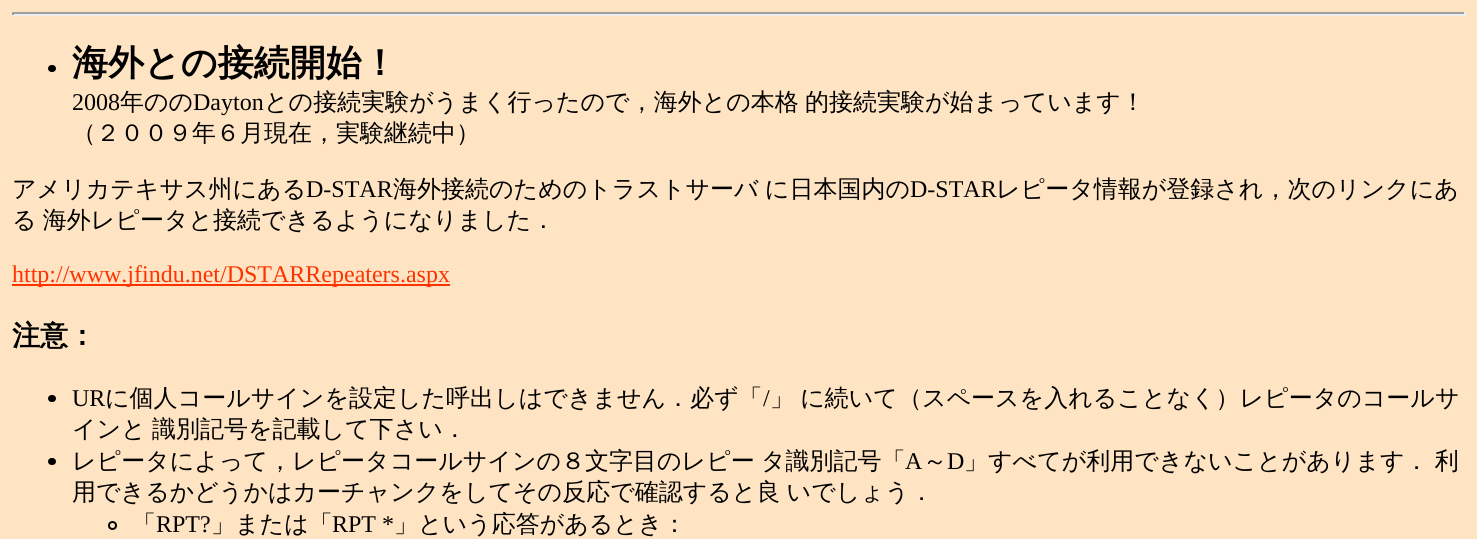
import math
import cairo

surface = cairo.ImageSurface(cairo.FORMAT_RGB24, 1477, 539)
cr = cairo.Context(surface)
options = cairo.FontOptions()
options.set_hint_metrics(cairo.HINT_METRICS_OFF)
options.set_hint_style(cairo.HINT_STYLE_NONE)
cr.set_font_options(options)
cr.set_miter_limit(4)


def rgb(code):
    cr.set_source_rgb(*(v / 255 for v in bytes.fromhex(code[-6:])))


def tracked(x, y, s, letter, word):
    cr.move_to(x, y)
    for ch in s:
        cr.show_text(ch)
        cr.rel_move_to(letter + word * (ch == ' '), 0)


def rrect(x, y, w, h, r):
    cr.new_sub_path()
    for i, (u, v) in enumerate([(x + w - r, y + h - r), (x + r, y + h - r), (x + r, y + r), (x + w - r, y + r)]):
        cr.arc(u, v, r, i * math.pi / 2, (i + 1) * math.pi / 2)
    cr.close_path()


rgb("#ffe4c4")
cr.paint()
for x, y, w, h, color in [
    (12, 12, 1454, 2, "#9f9f9f"),
    (1464, 12, 2, 3, "#eeeeee"),
    (12, 14, 1454, 2, "#eeeeee"),
    (12, 12, 2, 3, "#9f9f9f"),
]:
    rgb(color)
    cr.rectangle(x, y, w, h)
    cr.fill()
rgb("#000000")
rrect(48, 65, 8, 7, 3.5)
cr.fill()
rgb("#ff3300")
cr.rectangle(12, 284, 438, 2)
cr.fill()
rgb("#000000")
rrect(48, 395, 8, 7, 3.5)
cr.fill()
rrect(48, 458, 8, 7, 3.5)
cr.fill()
cr.arc(112.5, 525.5, 3.5, 0, 2 * math.pi)
cr.stroke()
cr.select_font_face("WenQuanYi Zen Hei", cairo.FONT_SLANT_NORMAL, cairo.FONT_WEIGHT_BOLD)
cr.set_font_size(36)
cr.move_to(72, 75)
cr.show_text("海外との接続開始！")
cr.select_font_face("Liberation Serif")
cr.set_font_size(24)
cr.move_to(72, 110)
cr.show_text("2008")
cr.select_font_face("WenQuanYi Zen Hei Medium")
cr.move_to(120, 110)
cr.show_text("年のの")
cr.select_font_face("Liberation Serif")
cr.move_to(193, 110)
cr.show_text("Dayton")
cr.select_font_face("WenQuanYi Zen Hei Medium")
tracked(264, 110, "との接続実験がうまく行ったので，海外との本格 的接続実験が始まっています！", 0, -1)
cr.move_to(72, 141)
cr.show_text("（２００９年６月現在，実験継続中）")
cr.move_to(12, 197)
cr.show_text("アメリカテキサス州にある")
cr.select_font_face("Liberation Serif")
cr.move_to(306, 197)
cr.show_text("D-STAR")
cr.select_font_face("WenQuanYi Zen Hei Medium")
tracked(393, 197, "海外接続のためのトラストサーバ に日本国内の", 0, -1)
cr.select_font_face("Liberation Serif")
cr.move_to(910, 197)
cr.show_text("D-STAR")
cr.select_font_face("WenQuanYi Zen Hei Medium")
cr.move_to(996, 197)
cr.show_text("レピータ情報が登録され，次のリンクにあ")
tracked(12, 228, "る 海外レピータと接続できるようになりました．", 0, -1)
cr.select_font_face("Liberation Serif")
rgb("#ff3300")
cr.move_to(12, 282)
cr.show_text("http://www.jfindu.net/DSTARRepeaters.aspx")
cr.select_font_face("WenQuanYi Zen Hei", cairo.FONT_SLANT_NORMAL, cairo.FONT_WEIGHT_BOLD)
cr.set_font_size(28)
rgb("#000000")
cr.move_to(12, 345)
cr.show_text("注意：")
cr.select_font_face("Liberation Serif")
cr.set_font_size(24)
cr.move_to(72, 406)
cr.show_text("UR")
cr.select_font_face("WenQuanYi Zen Hei Medium")
cr.move_to(105, 406)
cr.show_text("に個人コールサインを設定した呼出しはできません．必ず「")
cr.select_font_face("Liberation Serif")
cr.move_to(763, 406)
cr.show_text("/")
cr.select_font_face("WenQuanYi Zen Hei Medium")
for x, y, s in [
    (770, 406, "」 に続いて（スペースを入れることなく）レピータのコールサ"),
    (72, 437, "インと 識別記号を記載して下さい．"),
    (72, 469, "レピータによって，レピータコールサインの８文字目のレピー タ識別記号「"),
]:
    tracked(x, y, s, 0, -1)
cr.select_font_face("Liberation Serif")
cr.move_to(905, 469)
cr.show_text("A")
cr.select_font_face("WenQuanYi Zen Hei Medium")
cr.move_to(923, 469)
cr.show_text("～")
cr.select_font_face("Liberation Serif")
cr.move_to(947, 469)
cr.show_text("D")
cr.select_font_face("WenQuanYi Zen Hei Medium")
tracked(964, 469, "」すべてが利用できないことがあります． 利", 0, -1)
tracked(72, 500, "用できるかどうかはカーチャンクをしてその反応で確認すると良 いでしょう．", 0, -1)
cr.move_to(132, 532)
cr.show_text("「")
cr.select_font_face("Liberation Serif")
cr.move_to(156, 532)
cr.show_text("RPT?")
cr.select_font_face("WenQuanYi Zen Hei Medium")
cr.move_to(211, 532)
cr.show_text("」または「")
cr.select_font_face("Liberation Serif")
cr.move_to(332, 532)
cr.show_text("RPT *")
cr.select_font_face("WenQuanYi Zen Hei Medium")
cr.move_to(394, 532)
cr.show_text("」という応答があるとき：")
surface.write_to_png("page.png")
